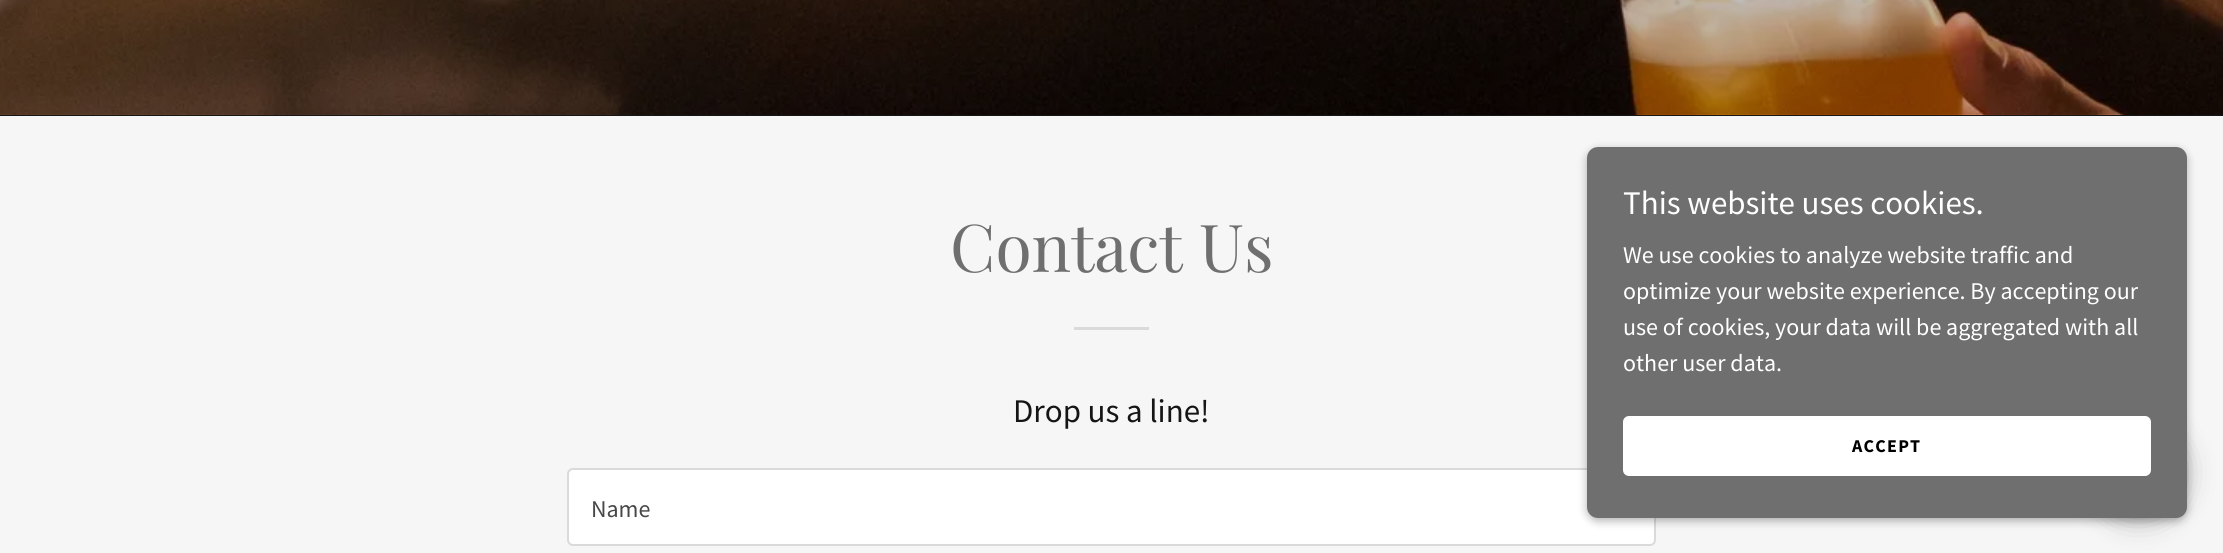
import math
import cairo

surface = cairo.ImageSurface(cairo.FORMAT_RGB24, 2223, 553)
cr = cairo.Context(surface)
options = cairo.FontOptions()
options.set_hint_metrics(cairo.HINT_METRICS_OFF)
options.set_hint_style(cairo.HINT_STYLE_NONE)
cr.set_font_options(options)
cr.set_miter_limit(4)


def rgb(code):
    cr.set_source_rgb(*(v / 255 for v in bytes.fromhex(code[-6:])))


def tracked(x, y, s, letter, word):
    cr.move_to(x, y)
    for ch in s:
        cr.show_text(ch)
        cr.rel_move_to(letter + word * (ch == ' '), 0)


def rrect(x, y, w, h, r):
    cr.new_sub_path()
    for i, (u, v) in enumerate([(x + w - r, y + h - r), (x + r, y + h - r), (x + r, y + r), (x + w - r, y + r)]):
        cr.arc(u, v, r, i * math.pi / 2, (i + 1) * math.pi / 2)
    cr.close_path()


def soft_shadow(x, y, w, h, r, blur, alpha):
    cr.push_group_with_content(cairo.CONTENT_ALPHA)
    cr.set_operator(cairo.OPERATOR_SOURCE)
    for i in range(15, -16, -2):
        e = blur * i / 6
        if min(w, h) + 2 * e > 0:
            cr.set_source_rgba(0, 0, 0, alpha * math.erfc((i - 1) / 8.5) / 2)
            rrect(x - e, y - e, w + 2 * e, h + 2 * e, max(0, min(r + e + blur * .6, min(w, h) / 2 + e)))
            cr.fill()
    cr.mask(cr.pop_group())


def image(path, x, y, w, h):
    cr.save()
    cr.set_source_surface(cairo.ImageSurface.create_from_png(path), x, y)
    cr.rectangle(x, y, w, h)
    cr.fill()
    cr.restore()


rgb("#161616")
cr.paint()
image("img/1.png", 0, 0, 2223, 115)
rgb("#f6f6f6")
cr.rectangle(0, 116, 2223, 437)
cr.fill()
rgb("#dadada")
cr.rectangle(1074, 327, 75, 3)
cr.fill()
rgb("#ffffff")
rrect(568, 469, 1087, 76, 5)
cr.fill_preserve()
rgb("#dadada")
cr.stroke()
rgb("#000000")
soft_shadow(1587, 150, 600, 371, 11, 4.5, 0.3)
soft_shadow(2090, 425, 97, 97, 48.5, 13.5, 0.25)
rgb("#6f6f6f")
rrect(1587, 147, 600, 371, 11)
cr.fill()
rgb("#ffffff")
rrect(1623, 416, 528, 60, 6)
cr.fill()
cr.select_font_face("Playfair Display")
cr.set_font_size(66)
rgb("#6f6f6f")
cr.move_to(950, 272)
cr.show_text("Contact Us")
cr.select_font_face("Source Sans Pro")
cr.set_font_size(33)
rgb("#151515")
cr.move_to(1013, 422)
cr.show_text("Drop us a line!")
cr.set_font_size(24)
rgb("#474747")
cr.move_to(591, 517)
cr.show_text("Name")
cr.set_font_size(33)
rgb("#ffffff")
cr.move_to(1623, 214)
cr.show_text("This website uses cookies.")
cr.set_font_size(24)
for x, y, s in [
    (1623, 263, "We use cookies to analyze website traffic and"),
    (1623, 299, "optimize your website experience. By accepting our"),
    (1623, 335, "use of cookies, your data will be aggregated with all"),
    (1623, 371, "other user data."),
]:
    cr.move_to(x, y)
    cr.show_text(s)
cr.select_font_face("Source Sans Pro", cairo.FONT_SLANT_NORMAL, cairo.FONT_WEIGHT_BOLD)
cr.set_font_size(18)
rgb("#000000")
tracked(1852, 452, "ACCEPT", 1.25, 0)
surface.write_to_png("page.png")
